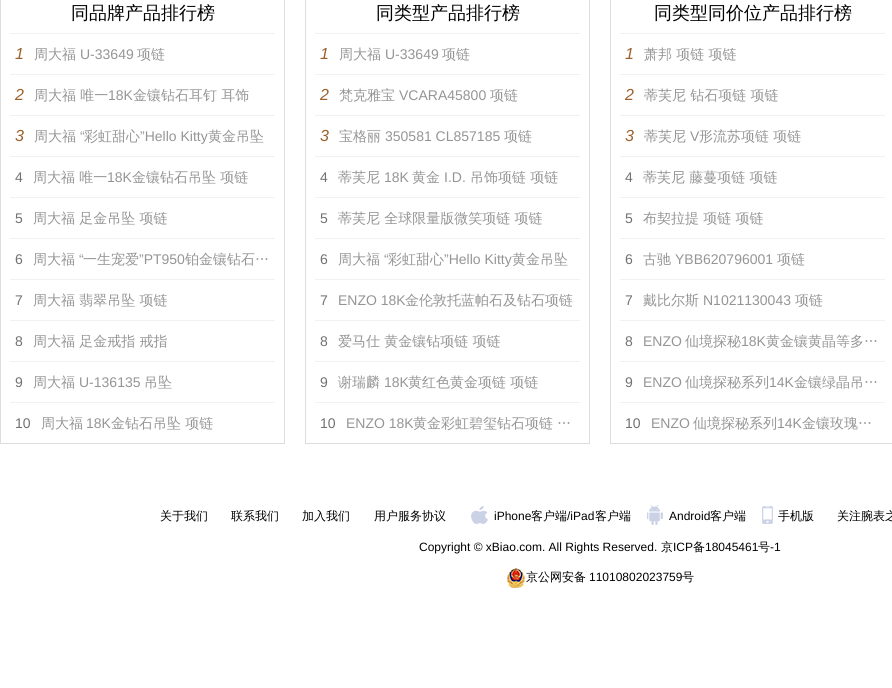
import math
import cairo

surface = cairo.ImageSurface(cairo.FORMAT_RGB24, 892, 688)
cr = cairo.Context(surface)
options = cairo.FontOptions()
options.set_hint_metrics(cairo.HINT_METRICS_OFF)
options.set_hint_style(cairo.HINT_STYLE_NONE)
cr.set_font_options(options)
cr.set_miter_limit(4)


def rgb(code):
    cr.set_source_rgb(*(v / 255 for v in bytes.fromhex(code[-6:])))


def image(path, x, y, w, h):
    cr.save()
    cr.set_source_surface(cairo.ImageSurface.create_from_png(path), x, y)
    cr.rectangle(x, y, w, h)
    cr.fill()
    cr.restore()


rgb("#ffffff")
cr.paint()
for x, y, w, h, color in [
    (284, 0, 1, 444, "#dddddd"),
    (0, 443, 285, 1, "#dddddd"),
    (0, 0, 1, 444, "#dddddd"),
    (10, 33, 265, 1, "#f1f1f1"),
    (10, 74, 265, 1, "#f1f1f1"),
    (10, 115, 265, 1, "#f1f1f1"),
    (10, 156, 265, 1, "#f1f1f1"),
    (10, 197, 265, 1, "#f1f1f1"),
    (10, 238, 265, 1, "#f1f1f1"),
    (10, 279, 265, 1, "#f1f1f1"),
    (10, 320, 265, 1, "#f1f1f1"),
    (10, 361, 265, 1, "#f1f1f1"),
    (10, 402, 265, 1, "#f1f1f1"),
    (589, 0, 1, 444, "#dddddd"),
    (305, 443, 285, 1, "#dddddd"),
    (305, 0, 1, 444, "#dddddd"),
    (315, 33, 265, 1, "#f1f1f1"),
    (315, 74, 265, 1, "#f1f1f1"),
    (315, 115, 265, 1, "#f1f1f1"),
    (315, 156, 265, 1, "#f1f1f1"),
    (315, 197, 265, 1, "#f1f1f1"),
    (315, 238, 265, 1, "#f1f1f1"),
    (315, 279, 265, 1, "#f1f1f1"),
    (315, 320, 265, 1, "#f1f1f1"),
    (315, 361, 265, 1, "#f1f1f1"),
    (315, 402, 265, 1, "#f1f1f1"),
    (610, 443, 282, 1, "#dddddd"),
    (610, 0, 1, 444, "#dddddd"),
    (620, 33, 265, 1, "#f1f1f1"),
    (620, 74, 265, 1, "#f1f1f1"),
    (620, 115, 265, 1, "#f1f1f1"),
    (620, 156, 265, 1, "#f1f1f1"),
    (620, 197, 265, 1, "#f1f1f1"),
    (620, 238, 265, 1, "#f1f1f1"),
    (620, 279, 265, 1, "#f1f1f1"),
    (620, 320, 265, 1, "#f1f1f1"),
    (620, 361, 265, 1, "#f1f1f1"),
    (620, 402, 265, 1, "#f1f1f1"),
]:
    rgb(color)
    cr.rectangle(x, y, w, h)
    cr.fill()
image("img/1.png", 471, 506, 17, 18)
image("img/2.png", 647, 505, 16, 20)
image("img/3.png", 762, 506, 11, 18)
image("img/4.png", 507, 568, 18, 20)
cr.select_font_face("WenQuanYi Zen Hei Medium")
cr.set_font_size(18)
rgb("#000000")
cr.move_to(71, 19)
cr.show_text("同品牌产品排行榜")
cr.select_font_face("Liberation Sans", cairo.FONT_SLANT_ITALIC)
cr.set_font_size(16)
rgb("#9c602b")
cr.move_to(15, 59)
cr.show_text("1")
cr.select_font_face("WenQuanYi Zen Hei Medium")
cr.set_font_size(14)
rgb("#959595")
cr.move_to(34, 59)
cr.show_text("周大福")
cr.select_font_face("Liberation Sans")
cr.move_to(80, 59)
cr.show_text("U-33649")
cr.select_font_face("WenQuanYi Zen Hei Medium")
cr.move_to(137, 59)
cr.show_text("项链")
cr.select_font_face("Liberation Sans", cairo.FONT_SLANT_ITALIC)
cr.set_font_size(16)
rgb("#9c602b")
cr.move_to(15, 100)
cr.show_text("2")
cr.select_font_face("WenQuanYi Zen Hei Medium")
cr.set_font_size(14)
rgb("#959595")
cr.move_to(34, 100)
cr.show_text("周大福 唯一")
cr.select_font_face("Liberation Sans")
cr.move_to(108, 100)
cr.show_text("18K")
cr.select_font_face("WenQuanYi Zen Hei Medium")
cr.move_to(133, 100)
cr.show_text("金镶钻石耳钉 耳饰")
cr.select_font_face("Liberation Sans", cairo.FONT_SLANT_ITALIC)
cr.set_font_size(16)
rgb("#9c602b")
cr.move_to(15, 141)
cr.show_text("3")
cr.select_font_face("WenQuanYi Zen Hei Medium")
cr.set_font_size(14)
rgb("#959595")
cr.move_to(34, 141)
cr.show_text("周大福")
cr.select_font_face("Liberation Sans")
cr.move_to(80, 141)
cr.show_text("“")
cr.select_font_face("WenQuanYi Zen Hei Medium")
cr.move_to(84, 141)
cr.show_text("彩虹甜心")
cr.select_font_face("Liberation Sans")
cr.move_to(140, 141)
cr.show_text("”Hello Kitty")
cr.select_font_face("WenQuanYi Zen Hei Medium")
cr.move_to(208, 141)
cr.show_text("黄金吊坠")
cr.select_font_face("Liberation Sans")
rgb("#717171")
cr.move_to(15, 182)
cr.show_text("4")
cr.select_font_face("WenQuanYi Zen Hei Medium")
rgb("#959595")
cr.move_to(33, 182)
cr.show_text("周大福 唯一")
cr.select_font_face("Liberation Sans")
cr.move_to(107, 182)
cr.show_text("18K")
cr.select_font_face("WenQuanYi Zen Hei Medium")
cr.move_to(132, 182)
cr.show_text("金镶钻石吊坠 项链")
cr.select_font_face("Liberation Sans")
rgb("#717171")
cr.move_to(15, 223)
cr.show_text("5")
cr.select_font_face("WenQuanYi Zen Hei Medium")
rgb("#959595")
cr.move_to(33, 223)
cr.show_text("周大福 足金吊坠 项链")
cr.select_font_face("Liberation Sans")
rgb("#717171")
cr.move_to(15, 264)
cr.show_text("6")
cr.select_font_face("WenQuanYi Zen Hei Medium")
rgb("#959595")
cr.move_to(33, 264)
cr.show_text("周大福")
cr.select_font_face("Liberation Sans")
cr.move_to(79, 264)
cr.show_text("“")
cr.select_font_face("WenQuanYi Zen Hei Medium")
cr.move_to(83, 264)
cr.show_text("一生宠爱")
cr.select_font_face("Liberation Sans")
cr.move_to(139, 264)
cr.show_text("”PT950")
cr.select_font_face("WenQuanYi Zen Hei Medium")
cr.move_to(185, 264)
cr.show_text("铂金镶钻石…")
cr.select_font_face("Liberation Sans")
rgb("#717171")
cr.move_to(15, 305)
cr.show_text("7")
cr.select_font_face("WenQuanYi Zen Hei Medium")
rgb("#959595")
cr.move_to(33, 305)
cr.show_text("周大福 翡翠吊坠 项链")
cr.select_font_face("Liberation Sans")
rgb("#717171")
cr.move_to(15, 346)
cr.show_text("8")
cr.select_font_face("WenQuanYi Zen Hei Medium")
rgb("#959595")
cr.move_to(33, 346)
cr.show_text("周大福 足金戒指 戒指")
cr.select_font_face("Liberation Sans")
rgb("#717171")
cr.move_to(15, 387)
cr.show_text("9")
cr.select_font_face("WenQuanYi Zen Hei Medium")
rgb("#959595")
cr.move_to(33, 387)
cr.show_text("周大福")
cr.select_font_face("Liberation Sans")
cr.move_to(79, 387)
cr.show_text("U-136135")
cr.select_font_face("WenQuanYi Zen Hei Medium")
cr.move_to(144, 387)
cr.show_text("吊坠")
cr.select_font_face("Liberation Sans")
rgb("#717171")
cr.move_to(15, 428)
cr.show_text("10")
cr.select_font_face("WenQuanYi Zen Hei Medium")
rgb("#959595")
cr.move_to(41, 428)
cr.show_text("周大福")
cr.select_font_face("Liberation Sans")
cr.move_to(86, 428)
cr.show_text("18K")
cr.select_font_face("WenQuanYi Zen Hei Medium")
cr.move_to(111, 428)
cr.show_text("金钻石吊坠 项链")
cr.set_font_size(18)
rgb("#000000")
cr.move_to(376, 19)
cr.show_text("同类型产品排行榜")
cr.select_font_face("Liberation Sans", cairo.FONT_SLANT_ITALIC)
cr.set_font_size(16)
rgb("#9c602b")
cr.move_to(320, 59)
cr.show_text("1")
cr.select_font_face("WenQuanYi Zen Hei Medium")
cr.set_font_size(14)
rgb("#959595")
cr.move_to(339, 59)
cr.show_text("周大福")
cr.select_font_face("Liberation Sans")
cr.move_to(385, 59)
cr.show_text("U-33649")
cr.select_font_face("WenQuanYi Zen Hei Medium")
cr.move_to(442, 59)
cr.show_text("项链")
cr.select_font_face("Liberation Sans", cairo.FONT_SLANT_ITALIC)
cr.set_font_size(16)
rgb("#9c602b")
cr.move_to(320, 100)
cr.show_text("2")
cr.select_font_face("WenQuanYi Zen Hei Medium")
cr.set_font_size(14)
rgb("#959595")
cr.move_to(339, 100)
cr.show_text("梵克雅宝")
cr.select_font_face("Liberation Sans")
cr.move_to(399, 100)
cr.show_text("VCARA45800")
cr.select_font_face("WenQuanYi Zen Hei Medium")
cr.move_to(490, 100)
cr.show_text("项链")
cr.select_font_face("Liberation Sans", cairo.FONT_SLANT_ITALIC)
cr.set_font_size(16)
rgb("#9c602b")
cr.move_to(320, 141)
cr.show_text("3")
cr.select_font_face("WenQuanYi Zen Hei Medium")
cr.set_font_size(14)
rgb("#959595")
cr.move_to(339, 141)
cr.show_text("宝格丽")
cr.select_font_face("Liberation Sans")
cr.move_to(385, 141)
cr.show_text("350581 CL857185")
cr.select_font_face("WenQuanYi Zen Hei Medium")
cr.move_to(504, 141)
cr.show_text("项链")
cr.select_font_face("Liberation Sans")
rgb("#717171")
cr.move_to(320, 182)
cr.show_text("4")
cr.select_font_face("WenQuanYi Zen Hei Medium")
rgb("#959595")
cr.move_to(338, 182)
cr.show_text("蒂芙尼")
cr.select_font_face("Liberation Sans")
cr.move_to(384, 182)
cr.show_text("18K")
cr.select_font_face("WenQuanYi Zen Hei Medium")
cr.move_to(412, 182)
cr.show_text("黄金")
cr.select_font_face("Liberation Sans")
cr.move_to(444, 182)
cr.show_text("I.D.")
cr.select_font_face("WenQuanYi Zen Hei Medium")
cr.move_to(470, 182)
cr.show_text("吊饰项链 项链")
cr.select_font_face("Liberation Sans")
rgb("#717171")
cr.move_to(320, 223)
cr.show_text("5")
cr.select_font_face("WenQuanYi Zen Hei Medium")
rgb("#959595")
cr.move_to(338, 223)
cr.show_text("蒂芙尼 全球限量版微笑项链 项链")
cr.select_font_face("Liberation Sans")
rgb("#717171")
cr.move_to(320, 264)
cr.show_text("6")
cr.select_font_face("WenQuanYi Zen Hei Medium")
rgb("#959595")
cr.move_to(338, 264)
cr.show_text("周大福")
cr.select_font_face("Liberation Sans")
cr.move_to(384, 264)
cr.show_text("“")
cr.select_font_face("WenQuanYi Zen Hei Medium")
cr.move_to(388, 264)
cr.show_text("彩虹甜心")
cr.select_font_face("Liberation Sans")
cr.move_to(444, 264)
cr.show_text("”Hello Kitty")
cr.select_font_face("WenQuanYi Zen Hei Medium")
cr.move_to(512, 264)
cr.show_text("黄金吊坠")
cr.select_font_face("Liberation Sans")
rgb("#717171")
cr.move_to(320, 305)
cr.show_text("7")
rgb("#959595")
cr.move_to(338, 305)
cr.show_text("ENZO 18K")
cr.select_font_face("WenQuanYi Zen Hei Medium")
cr.move_to(405, 305)
cr.show_text("金伦敦托蓝帕石及钻石项链")
cr.select_font_face("Liberation Sans")
rgb("#717171")
cr.move_to(320, 346)
cr.show_text("8")
cr.select_font_face("WenQuanYi Zen Hei Medium")
rgb("#959595")
cr.move_to(338, 346)
cr.show_text("爱马仕 黄金镶钻项链 项链")
cr.select_font_face("Liberation Sans")
rgb("#717171")
cr.move_to(320, 387)
cr.show_text("9")
cr.select_font_face("WenQuanYi Zen Hei Medium")
rgb("#959595")
cr.move_to(338, 387)
cr.show_text("谢瑞麟")
cr.select_font_face("Liberation Sans")
cr.move_to(384, 387)
cr.show_text("18K")
cr.select_font_face("WenQuanYi Zen Hei Medium")
cr.move_to(408, 387)
cr.show_text("黄红色黄金项链 项链")
cr.select_font_face("Liberation Sans")
rgb("#717171")
cr.move_to(320, 428)
cr.show_text("10")
rgb("#959595")
cr.move_to(346, 428)
cr.show_text("ENZO 18K")
cr.select_font_face("WenQuanYi Zen Hei Medium")
cr.move_to(413, 428)
cr.show_text("黄金彩虹碧玺钻石项链")
cr.move_to(557, 428)
cr.show_text("…")
cr.set_font_size(18)
rgb("#000000")
cr.move_to(654, 19)
cr.show_text("同类型同价位产品排行榜")
cr.select_font_face("Liberation Sans", cairo.FONT_SLANT_ITALIC)
cr.set_font_size(16)
rgb("#9c602b")
cr.move_to(625, 59)
cr.show_text("1")
cr.select_font_face("WenQuanYi Zen Hei Medium")
cr.set_font_size(14)
rgb("#959595")
cr.move_to(644, 59)
cr.show_text("萧邦 项链 项链")
cr.select_font_face("Liberation Sans", cairo.FONT_SLANT_ITALIC)
cr.set_font_size(16)
rgb("#9c602b")
cr.move_to(625, 100)
cr.show_text("2")
cr.select_font_face("WenQuanYi Zen Hei Medium")
cr.set_font_size(14)
rgb("#959595")
cr.move_to(644, 100)
cr.show_text("蒂芙尼 钻石项链 项链")
cr.select_font_face("Liberation Sans", cairo.FONT_SLANT_ITALIC)
cr.set_font_size(16)
rgb("#9c602b")
cr.move_to(625, 141)
cr.show_text("3")
cr.select_font_face("WenQuanYi Zen Hei Medium")
cr.set_font_size(14)
rgb("#959595")
cr.move_to(644, 141)
cr.show_text("蒂芙尼")
cr.select_font_face("Liberation Sans")
cr.move_to(690, 141)
cr.show_text("V")
cr.select_font_face("WenQuanYi Zen Hei Medium")
cr.move_to(699, 141)
cr.show_text("形流苏项链 项链")
cr.select_font_face("Liberation Sans")
rgb("#717171")
cr.move_to(625, 182)
cr.show_text("4")
cr.select_font_face("WenQuanYi Zen Hei Medium")
rgb("#959595")
cr.move_to(643, 182)
cr.show_text("蒂芙尼 藤蔓项链 项链")
cr.select_font_face("Liberation Sans")
rgb("#717171")
cr.move_to(625, 223)
cr.show_text("5")
cr.select_font_face("WenQuanYi Zen Hei Medium")
rgb("#959595")
cr.move_to(643, 223)
cr.show_text("布契拉提 项链 项链")
cr.select_font_face("Liberation Sans")
rgb("#717171")
cr.move_to(625, 264)
cr.show_text("6")
cr.select_font_face("WenQuanYi Zen Hei Medium")
rgb("#959595")
cr.move_to(643, 264)
cr.show_text("古驰")
cr.select_font_face("Liberation Sans")
cr.move_to(675, 264)
cr.show_text("YBB620796001")
cr.select_font_face("WenQuanYi Zen Hei Medium")
cr.move_to(777, 264)
cr.show_text("项链")
cr.select_font_face("Liberation Sans")
rgb("#717171")
cr.move_to(625, 305)
cr.show_text("7")
cr.select_font_face("WenQuanYi Zen Hei Medium")
rgb("#959595")
cr.move_to(643, 305)
cr.show_text("戴比尔斯")
cr.select_font_face("Liberation Sans")
cr.move_to(703, 305)
cr.show_text("N1021130043")
cr.select_font_face("WenQuanYi Zen Hei Medium")
cr.move_to(795, 305)
cr.show_text("项链")
cr.select_font_face("Liberation Sans")
rgb("#717171")
cr.move_to(625, 346)
cr.show_text("8")
rgb("#959595")
cr.move_to(643, 346)
cr.show_text("ENZO")
cr.select_font_face("WenQuanYi Zen Hei Medium")
cr.move_to(685, 346)
cr.show_text("仙境探秘")
cr.select_font_face("Liberation Sans")
cr.move_to(741, 346)
cr.show_text("18K")
cr.select_font_face("WenQuanYi Zen Hei Medium")
cr.move_to(766, 346)
cr.show_text("黄金镶黄晶等多…")
cr.select_font_face("Liberation Sans")
rgb("#717171")
cr.move_to(625, 387)
cr.show_text("9")
rgb("#959595")
cr.move_to(643, 387)
cr.show_text("ENZO")
cr.select_font_face("WenQuanYi Zen Hei Medium")
cr.move_to(685, 387)
cr.show_text("仙境探秘系列")
cr.select_font_face("Liberation Sans")
cr.move_to(769, 387)
cr.show_text("14K")
cr.select_font_face("WenQuanYi Zen Hei Medium")
cr.move_to(794, 387)
cr.show_text("金镶绿晶吊…")
cr.select_font_face("Liberation Sans")
rgb("#717171")
cr.move_to(625, 428)
cr.show_text("10")
rgb("#959595")
cr.move_to(651, 428)
cr.show_text("ENZO")
cr.select_font_face("WenQuanYi Zen Hei Medium")
cr.move_to(693, 428)
cr.show_text("仙境探秘系列")
cr.select_font_face("Liberation Sans")
cr.move_to(777, 428)
cr.show_text("14K")
cr.select_font_face("WenQuanYi Zen Hei Medium")
cr.move_to(802, 428)
cr.show_text("金镶玫瑰…")
cr.set_font_size(12)
rgb("#000000")
for x, y, s in [
    (160, 520, "关于我们"),
    (231, 520, "联系我们"),
    (302, 520, "加入我们"),
    (374, 520, "用户服务协议"),
]:
    cr.move_to(x, y)
    cr.show_text(s)
cr.select_font_face("Liberation Sans")
cr.move_to(494, 520)
cr.show_text("iPhone")
cr.select_font_face("WenQuanYi Zen Hei Medium")
cr.move_to(531, 520)
cr.show_text("客户端")
cr.select_font_face("Liberation Sans")
cr.move_to(567, 520)
cr.show_text("/iPad")
cr.select_font_face("WenQuanYi Zen Hei Medium")
cr.move_to(595, 520)
cr.show_text("客户端")
cr.select_font_face("Liberation Sans")
cr.move_to(669, 520)
cr.show_text("Android")
cr.select_font_face("WenQuanYi Zen Hei Medium")
for x, y, s in [
    (710, 520, "客户端"),
    (778, 520, "手机版"),
    (837, 520, "关注腕表之"),
]:
    cr.move_to(x, y)
    cr.show_text(s)
cr.select_font_face("Liberation Sans")
cr.move_to(419, 551)
cr.show_text("Copyright © xBiao.com. All Rights Reserved.")
cr.select_font_face("WenQuanYi Zen Hei Medium")
cr.move_to(661, 551)
cr.show_text("京")
cr.select_font_face("Liberation Sans")
cr.move_to(673, 551)
cr.show_text("ICP")
cr.select_font_face("WenQuanYi Zen Hei Medium")
cr.move_to(693, 551)
cr.show_text("备")
cr.select_font_face("Liberation Sans")
cr.move_to(705, 551)
cr.show_text("18045461")
cr.select_font_face("WenQuanYi Zen Hei Medium")
cr.move_to(758, 551)
cr.show_text("号")
cr.select_font_face("Liberation Sans")
cr.move_to(770, 551)
cr.show_text("-1")
cr.select_font_face("WenQuanYi Zen Hei Medium")
cr.move_to(526, 581)
cr.show_text("京公网安备")
cr.select_font_face("Liberation Sans")
cr.move_to(589, 581)
cr.show_text("11010802023759")
cr.select_font_face("WenQuanYi Zen Hei Medium")
cr.move_to(682, 581)
cr.show_text("号")
surface.write_to_png("page.png")
